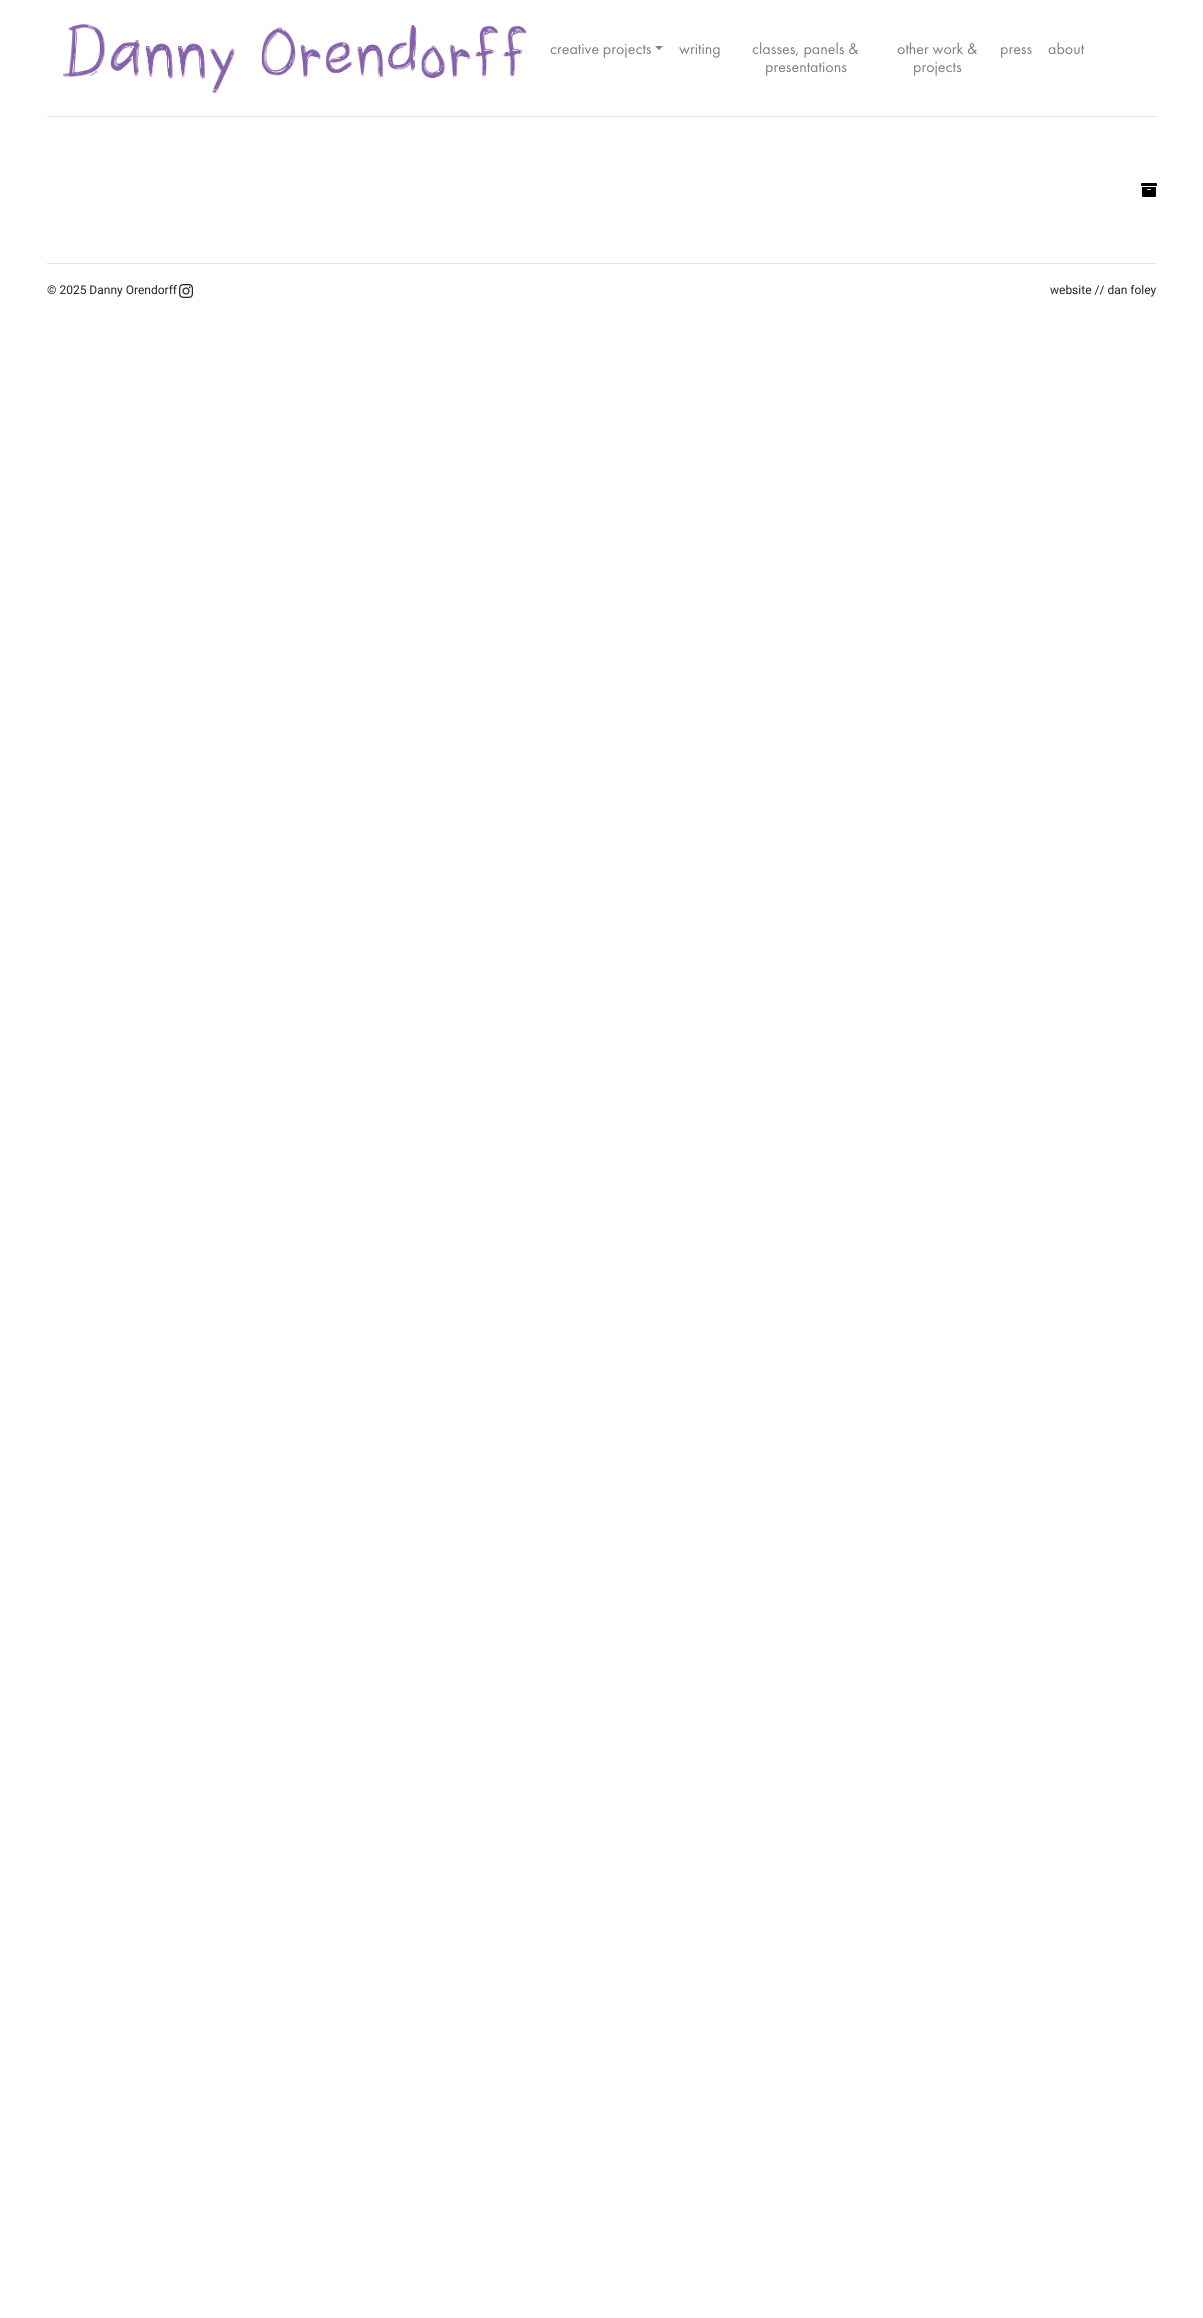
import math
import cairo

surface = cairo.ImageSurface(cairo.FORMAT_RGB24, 1203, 2318)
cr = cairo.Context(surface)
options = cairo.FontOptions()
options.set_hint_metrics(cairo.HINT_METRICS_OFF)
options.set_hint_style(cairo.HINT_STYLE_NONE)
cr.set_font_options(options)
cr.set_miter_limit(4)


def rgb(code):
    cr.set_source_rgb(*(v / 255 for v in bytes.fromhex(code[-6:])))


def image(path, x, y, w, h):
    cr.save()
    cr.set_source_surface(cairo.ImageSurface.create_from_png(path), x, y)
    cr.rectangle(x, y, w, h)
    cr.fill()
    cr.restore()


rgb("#ffffff")
cr.paint()
image("img/1.png", 63, 24, 172, 69)
image("img/2.png", 261, 25, 265, 54)
rgb("#808080")
cr.new_path()
cr.move_to(655, 46)
cr.line_to(663, 46)
cr.line_to(659, 50)
cr.close_path()
cr.fill()
rgb("#e6e6e6")
cr.rectangle(47, 116, 1110, 1)
cr.fill()
image("img/3.png", 1141, 183, 16, 14)
cr.rectangle(47, 263, 1110, 1)
cr.fill()
image("img/4.png", 179, 284, 15, 14)
cr.select_font_face("Futura PT")
cr.set_font_size(16)
rgb("#808080")
for x, y, s in [
    (550, 54, "creative projects"),
    (679, 54, "writing"),
    (752, 54, "classes, panels &"),
    (765, 72, "presentations"),
    (897, 54, "other work &"),
    (913, 72, "projects"),
    (1000, 54, "press"),
    (1048, 54, "about"),
]:
    cr.move_to(x, y)
    cr.show_text(s)
cr.select_font_face("Roboto")
cr.set_font_size(12)
rgb("#212529")
cr.move_to(47, 294)
cr.show_text("© 2025 Danny Orendorff")
cr.move_to(1050, 294)
cr.show_text("website // dan foley")
surface.write_to_png("page.png")
